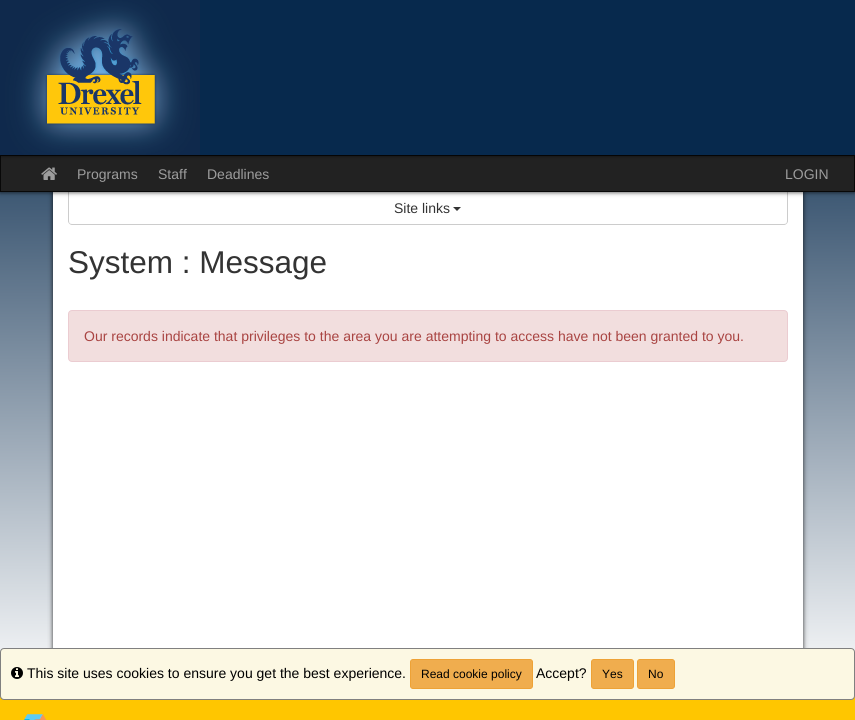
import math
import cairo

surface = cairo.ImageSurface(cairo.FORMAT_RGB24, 855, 720)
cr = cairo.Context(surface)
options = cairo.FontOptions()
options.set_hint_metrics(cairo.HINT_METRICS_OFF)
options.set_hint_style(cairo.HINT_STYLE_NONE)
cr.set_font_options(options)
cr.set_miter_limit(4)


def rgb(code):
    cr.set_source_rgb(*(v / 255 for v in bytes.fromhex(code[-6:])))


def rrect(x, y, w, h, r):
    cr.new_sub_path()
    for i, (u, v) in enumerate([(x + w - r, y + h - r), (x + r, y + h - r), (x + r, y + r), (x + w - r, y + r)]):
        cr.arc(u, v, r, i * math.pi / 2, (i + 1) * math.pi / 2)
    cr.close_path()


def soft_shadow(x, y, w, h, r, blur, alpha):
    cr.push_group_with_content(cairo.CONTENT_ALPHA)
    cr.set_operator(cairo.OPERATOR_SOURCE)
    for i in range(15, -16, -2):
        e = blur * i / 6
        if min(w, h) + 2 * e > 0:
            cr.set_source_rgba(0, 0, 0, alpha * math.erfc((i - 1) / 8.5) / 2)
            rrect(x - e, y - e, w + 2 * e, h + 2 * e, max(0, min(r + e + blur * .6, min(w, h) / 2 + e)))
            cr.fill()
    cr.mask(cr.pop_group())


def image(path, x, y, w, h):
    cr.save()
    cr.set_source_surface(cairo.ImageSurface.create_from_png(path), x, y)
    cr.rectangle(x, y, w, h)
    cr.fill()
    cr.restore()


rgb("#ffffff")
cr.paint()
gradient = cairo.LinearGradient(427, 0, 428, 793)
gradient.add_color_stop_rgba(0.06, 0.027, 0.161, 0.298, 1)
gradient.add_color_stop_rgba(0.88, 1, 1, 1, 1)
cr.set_source(gradient)
cr.rectangle(0, 192, 855, 460)
cr.fill()
rgb("#000000")
soft_shadow(53, 192, 750, 500, 0, 2.5, 0.8)
rgb("#ffffff")
cr.rectangle(53, 192, 750, 456)
cr.fill()
rgb("#cccccc")
cr.set_fill_rule(cairo.FILL_RULE_EVEN_ODD)
cr.new_path()
cr.move_to(68, 192)
cr.line_to(788, 192)
cr.line_to(788, 221)
cr.curve_to(788, 223, 786, 225, 784, 225)
cr.line_to(72, 225)
cr.curve_to(70, 225, 68, 223, 68, 221)
cr.close_path()
cr.move_to(69, 192)
cr.line_to(787, 192)
cr.line_to(787, 221)
cr.curve_to(787, 223, 786, 224, 784, 224)
cr.line_to(72, 224)
cr.curve_to(70, 224, 69, 223, 69, 221)
cr.close_path()
cr.fill()
rgb("#000000")
soft_shadow(0, 155, 855, 37, 0, 2.5, 0.8)
rgb("#222222")
cr.rectangle(0.5, 155.5, 854, 36)
cr.fill_preserve()
rgb("#080808")
cr.set_line_width(1)
cr.stroke()
rgb("#000000")
soft_shadow(0, 0, 855, 155, 0, 2.5, 0.8)
rgb("#07294d")
cr.rectangle(200, 0, 655, 155)
cr.fill()
image("img/1.png", 0, 0, 200, 155)
image("img/2.png", 41, 167, 16, 13)
rgb("#333333")
cr.set_fill_rule(cairo.FILL_RULE_WINDING)
cr.new_path()
cr.move_to(453, 207)
cr.line_to(461, 207)
cr.line_to(457, 211)
cr.close_path()
cr.fill()
rgb("#f2dede")
rrect(68.5, 310.5, 719, 51, 3.5)
cr.fill_preserve()
rgb("#ebccd1")
cr.stroke()
rgb("#ffc600")
cr.rectangle(0, 696, 855, 24)
cr.fill()
rgb("#fcf8e3")
rrect(0.5, 648.5, 854, 51, 3.5)
cr.fill_preserve()
rgb("#808080")
cr.stroke()
image("img/3.png", 11, 667, 12, 12)
rgb("#f0ad4e")
rrect(410.5, 659.5, 122, 29, 2.5)
cr.fill_preserve()
rgb("#eea236")
cr.stroke()
rgb("#f0ad4e")
rrect(591.5, 659.5, 42, 29, 2.5)
cr.fill_preserve()
rgb("#eea236")
cr.stroke()
rgb("#f0ad4e")
rrect(637.5, 659.5, 37, 29, 2.5)
cr.fill_preserve()
rgb("#eea236")
cr.stroke()
image("img/4.png", 24, 714, 23, 6)
cr.select_font_face("Liberation Sans")
cr.set_font_size(14)
rgb("#9d9d9d")
for x, y, s in [
    (77, 179, "Programs"),
    (158, 179, "Staff"),
    (207, 179, "Deadlines"),
    (785, 179, "LOGIN"),
]:
    cr.move_to(x, y)
    cr.show_text(s)
rgb("#333333")
cr.move_to(394, 213)
cr.show_text("Site links")
cr.set_font_size(31.5)
cr.move_to(68, 273)
cr.show_text("System : Message")
cr.set_font_size(14)
rgb("#a94442")
cr.move_to(84, 341)
cr.show_text("Our records indicate that privileges to the area you are attempting to access have not been granted to you.")
rgb("#000000")
cr.move_to(27, 678)
cr.show_text("This site uses cookies to ensure you get the best experience.")
cr.set_font_size(12)
cr.move_to(421, 678)
cr.show_text("Read cookie policy")
cr.set_font_size(14)
cr.move_to(536, 678)
cr.show_text("Accept?")
cr.set_font_size(12)
cr.move_to(602, 678)
cr.show_text("Yes")
cr.move_to(648, 678)
cr.show_text("No")
surface.write_to_png("page.png")
